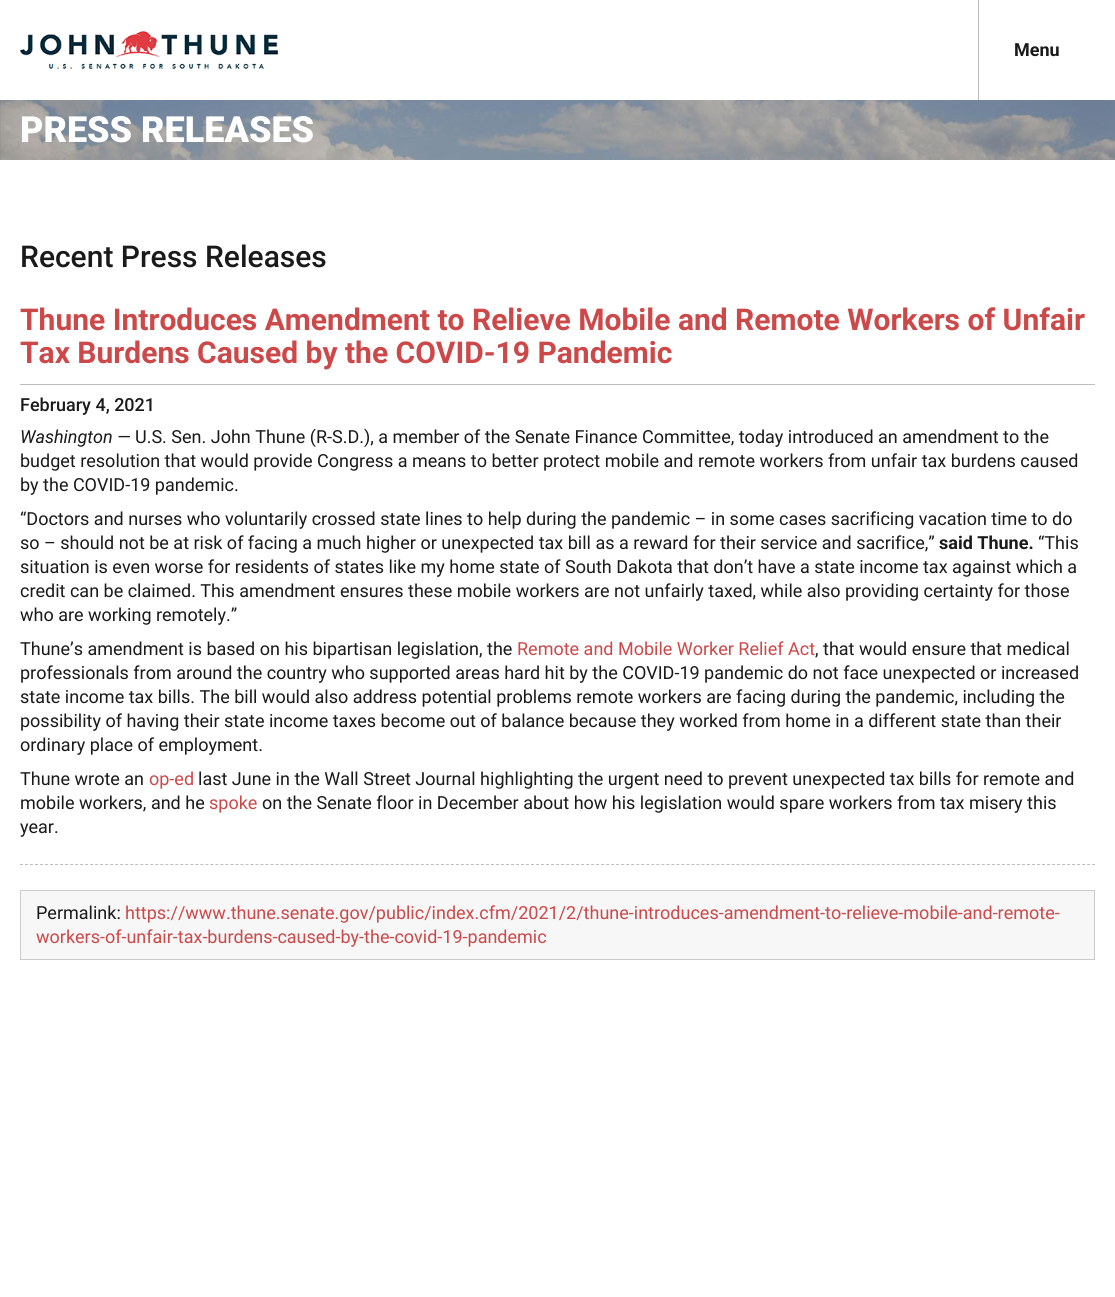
import math
import cairo

surface = cairo.ImageSurface(cairo.FORMAT_RGB24, 1115, 1297)
cr = cairo.Context(surface)
options = cairo.FontOptions()
options.set_hint_metrics(cairo.HINT_METRICS_OFF)
options.set_hint_style(cairo.HINT_STYLE_NONE)
cr.set_font_options(options)
cr.set_miter_limit(4)


def rgb(code):
    cr.set_source_rgb(*(v / 255 for v in bytes.fromhex(code[-6:])))


def image(path, x, y, w, h):
    cr.save()
    cr.set_source_surface(cairo.ImageSurface.create_from_png(path), x, y)
    cr.rectangle(x, y, w, h)
    cr.fill()
    cr.restore()


rgb("#ffffff")
cr.paint()
image("img/1.png", 20, 31, 258, 38)
rgb("#bcbbbb")
cr.rectangle(978, 0, 1, 100)
cr.fill()
image("img/2.png", 0, 100, 1115, 60)
rgb("#bfbfbf")
cr.rectangle(20, 384, 1075, 1)
cr.fill()
cr.new_path()
cr.move_to(20, 864.5)
cr.line_to(1095, 864.5)
cr.set_line_width(1)
cr.set_dash([3, 2.01])
cr.stroke()
rgb("#f7f7f7")
cr.rectangle(20.5, 890.5, 1074, 69)
cr.fill_preserve()
rgb("#cccccc")
cr.set_dash([])
cr.stroke()
cr.select_font_face("Roboto", cairo.FONT_SLANT_NORMAL, cairo.FONT_WEIGHT_BOLD)
cr.set_font_size(18)
rgb("#1a1a1a")
cr.move_to(1014, 56)
cr.show_text("Menu")
cr.select_font_face("Roboto Black")
cr.set_font_size(36)
rgb("#ffffff")
cr.move_to(20, 142)
cr.show_text("PRESS RELEASES")
cr.select_font_face("Roboto Medium")
cr.set_font_size(30)
rgb("#1a1a1a")
cr.move_to(20, 267)
cr.show_text("Recent Press Releases")
cr.select_font_face("Roboto", cairo.FONT_SLANT_NORMAL, cairo.FONT_WEIGHT_BOLD)
rgb("#cc4849")
cr.move_to(20, 330)
cr.show_text("Thune Introduces Amendment to Relieve Mobile and Remote Workers of Unfair")
cr.move_to(20, 363)
cr.show_text("Tax Burdens Caused by the COVID-19 Pandemic")
cr.select_font_face("Roboto Medium")
cr.set_font_size(18)
rgb("#1a1a1a")
cr.move_to(20, 411)
cr.show_text("February 4, 2021")
cr.select_font_face("Roboto")
for x, y, s in [
    (135, 443, "U.S. Sen. John Thune (R-S.D.), a member of the Senate Finance Committee, today introduced an amendment to the"),
    (20, 467, "budget resolution that would provide Congress a means to better protect mobile and remote workers from unfair tax burdens caused"),
    (20, 491, "by the COVID-19 pandemic."),
]:
    cr.move_to(x, y)
    cr.show_text(s)
cr.select_font_face("Roboto", cairo.FONT_SLANT_ITALIC)
cr.move_to(20, 443)
cr.show_text("Washington —")
cr.select_font_face("Roboto")
cr.move_to(20, 525)
cr.show_text("“Doctors and nurses who voluntarily crossed state lines to help during the pandemic – in some cases sacrificing vacation time to do")
cr.move_to(20, 549)
cr.show_text("so – should not be at risk of facing a much higher or unexpected tax bill as a reward for their service and sacrifice,”")
cr.select_font_face("Roboto", cairo.FONT_SLANT_NORMAL, cairo.FONT_WEIGHT_BOLD)
cr.move_to(939, 549)
cr.show_text("said Thune.")
cr.select_font_face("Roboto")
for x, y, s in [
    (1038, 549, "“This"),
    (20, 573, "situation is even worse for residents of states like my home state of South Dakota that don’t have a state income tax against which a"),
    (20, 597, "credit can be claimed. This amendment ensures these mobile workers are not unfairly taxed, while also providing certainty for those"),
    (20, 621, "who are working remotely.”"),
    (20, 655, "Thune’s amendment is based on his bipartisan legislation, the"),
]:
    cr.move_to(x, y)
    cr.show_text(s)
rgb("#cc4849")
cr.move_to(517, 655)
cr.show_text("Remote and Mobile Worker Relief Act")
rgb("#1a1a1a")
for x, y, s in [
    (815, 655, ", that would ensure that medical"),
    (20, 679, "professionals from around the country who supported areas hard hit by the COVID-19 pandemic do not face unexpected or increased"),
    (20, 703, "state income tax bills. The bill would also address potential problems remote workers are facing during the pandemic, including the"),
    (20, 727, "possibility of having their state income taxes become out of balance because they worked from home in a different state than their"),
    (20, 751, "ordinary place of employment."),
    (20, 785, "Thune wrote an"),
]:
    cr.move_to(x, y)
    cr.show_text(s)
rgb("#cc4849")
cr.move_to(149, 785)
cr.show_text("op-ed")
rgb("#1a1a1a")
cr.move_to(198, 785)
cr.show_text("last June in the Wall Street Journal highlighting the urgent need to prevent unexpected tax bills for remote and")
cr.move_to(20, 809)
cr.show_text("mobile workers, and he")
rgb("#cc4849")
cr.move_to(209, 809)
cr.show_text("spoke")
rgb("#1a1a1a")
for x, y, s in [
    (262, 809, "on the Senate floor in December about how his legislation would spare workers from tax misery this"),
    (20, 833, "year."),
    (36, 919, "Permalink:"),
]:
    cr.move_to(x, y)
    cr.show_text(s)
rgb("#cc4849")
cr.move_to(125, 919)
cr.show_text("https://www.thune.senate.gov/public/index.cfm/2021/2/thune-introduces-amendment-to-relieve-mobile-and-remote-")
cr.move_to(36, 943)
cr.show_text("workers-of-unfair-tax-burdens-caused-by-the-covid-19-pandemic")
surface.write_to_png("page.png")
